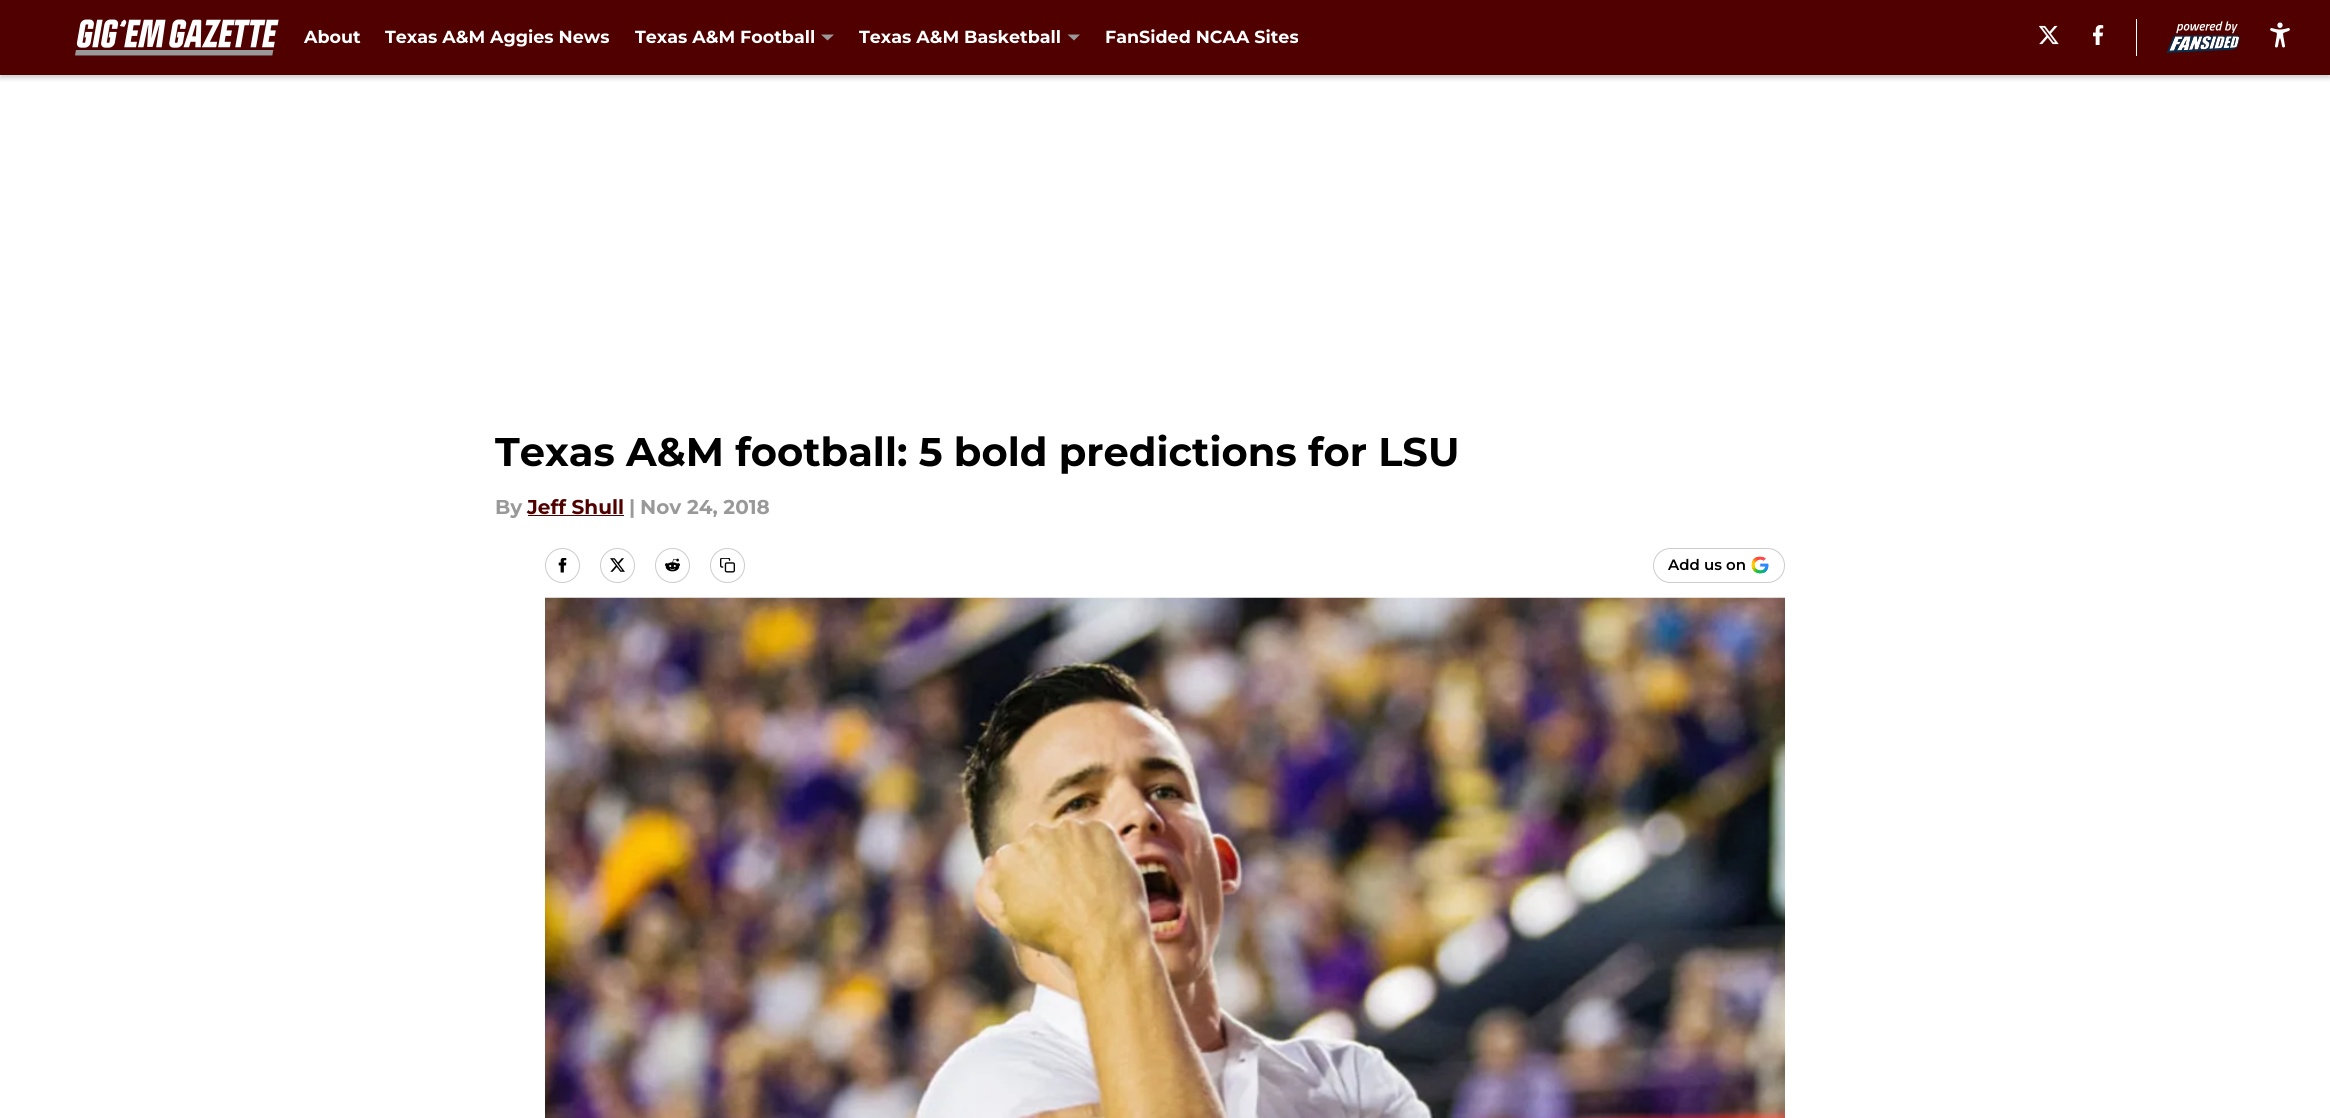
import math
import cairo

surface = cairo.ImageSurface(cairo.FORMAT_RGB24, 2330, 1118)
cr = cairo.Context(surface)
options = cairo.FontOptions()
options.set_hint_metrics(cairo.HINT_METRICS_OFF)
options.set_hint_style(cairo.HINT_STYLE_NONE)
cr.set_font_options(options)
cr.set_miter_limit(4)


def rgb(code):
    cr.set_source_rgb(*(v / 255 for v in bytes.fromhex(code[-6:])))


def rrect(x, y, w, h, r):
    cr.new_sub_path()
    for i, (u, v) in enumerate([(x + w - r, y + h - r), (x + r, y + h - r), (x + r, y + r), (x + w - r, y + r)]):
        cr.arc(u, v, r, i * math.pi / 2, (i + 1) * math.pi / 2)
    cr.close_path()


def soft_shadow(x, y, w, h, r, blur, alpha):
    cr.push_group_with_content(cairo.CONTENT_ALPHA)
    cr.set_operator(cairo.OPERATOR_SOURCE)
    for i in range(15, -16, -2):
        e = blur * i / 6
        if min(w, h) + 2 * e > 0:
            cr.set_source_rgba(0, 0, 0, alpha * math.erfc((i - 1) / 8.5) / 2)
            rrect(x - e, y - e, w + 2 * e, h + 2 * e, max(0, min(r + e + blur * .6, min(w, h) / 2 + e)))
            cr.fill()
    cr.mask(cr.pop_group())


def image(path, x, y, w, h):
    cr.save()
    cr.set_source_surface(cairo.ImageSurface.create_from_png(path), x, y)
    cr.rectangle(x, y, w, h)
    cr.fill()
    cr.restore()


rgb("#ffffff")
cr.paint()
rgb("#000000")
soft_shadow(0, 3, 2330, 75, 0, 2.5, 0.2)
rgb("#510000")
cr.rectangle(0, 0, 2330, 75)
cr.fill()
image("img/1.png", 75, 19, 204, 37)
rgb("#999999")
cr.set_fill_rule(cairo.FILL_RULE_EVEN_ODD)
cr.new_path()
cr.move_to(821, 34.5)
cr.line_to(827.5, 40.5)
cr.line_to(834, 34.5)
cr.close_path()
cr.fill()
cr.new_path()
cr.move_to(1067.5, 34.5)
cr.line_to(1074, 40.5)
cr.line_to(1080, 34.5)
cr.close_path()
cr.fill()
image("img/2.png", 2039, 25, 20, 20)
image("img/3.png", 2093, 25, 11, 20)
rgb("#ffffff")
cr.rectangle(2136, 19, 1, 37)
cr.fill()
image("img/4.png", 2166, 21, 74, 32)
image("img/5.png", 2270, 22, 20, 26)
rgb("#510000")
cr.rectangle(528, 515, 96, 1)
cr.fill()
cr.arc(562.5, 565.5, 17, 0, 2 * math.pi)
rgb("#cccccc")
cr.set_line_width(1)
cr.stroke()
image("img/6.png", 558, 558, 9, 15)
cr.arc(617.5, 565.5, 17, 0, 2 * math.pi)
cr.stroke()
image("img/7.png", 610, 558, 15, 14)
cr.arc(672.5, 565.5, 17, 0, 2 * math.pi)
cr.stroke()
image("img/8.png", 665, 558, 15, 14)
cr.arc(727.5, 565.5, 17, 0, 2 * math.pi)
cr.stroke()
image("img/9.png", 720, 558, 15, 15)
rrect(1653.5, 548.5, 131, 34, 17)
cr.stroke()
image("img/10.png", 1751, 556, 18, 18)
image("img/11.png", 545, 597, 1240, 521)
cr.select_font_face("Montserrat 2 Thin")
cr.set_font_size(17.5)
rgb("#ffffff")
for x, y, s in [
    (304, 43, "About"),
    (385, 43, "Texas A&M Aggies News"),
    (635, 43, "Texas A&M Football"),
    (859, 43, "Texas A&M Basketball"),
    (1105, 43, "FanSided NCAA Sites"),
]:
    cr.move_to(x, y)
    cr.show_text(s)
cr.set_font_size(40)
rgb("#000000")
cr.move_to(495, 466)
cr.show_text("Texas A&M football: 5 bold predictions for LSU")
cr.set_font_size(20)
rgb("#999999")
cr.move_to(495, 514)
cr.show_text("By")
rgb("#510000")
cr.move_to(527, 514)
cr.show_text("Jeff Shull")
rgb("#999999")
cr.move_to(629, 514)
cr.show_text("|")
cr.move_to(640, 514)
cr.show_text("Nov 24, 2018")
cr.select_font_face("Montserrat Thin")
cr.set_font_size(15)
rgb("#000000")
cr.move_to(1668, 570)
cr.show_text("Add us on")
surface.write_to_png("page.png")
